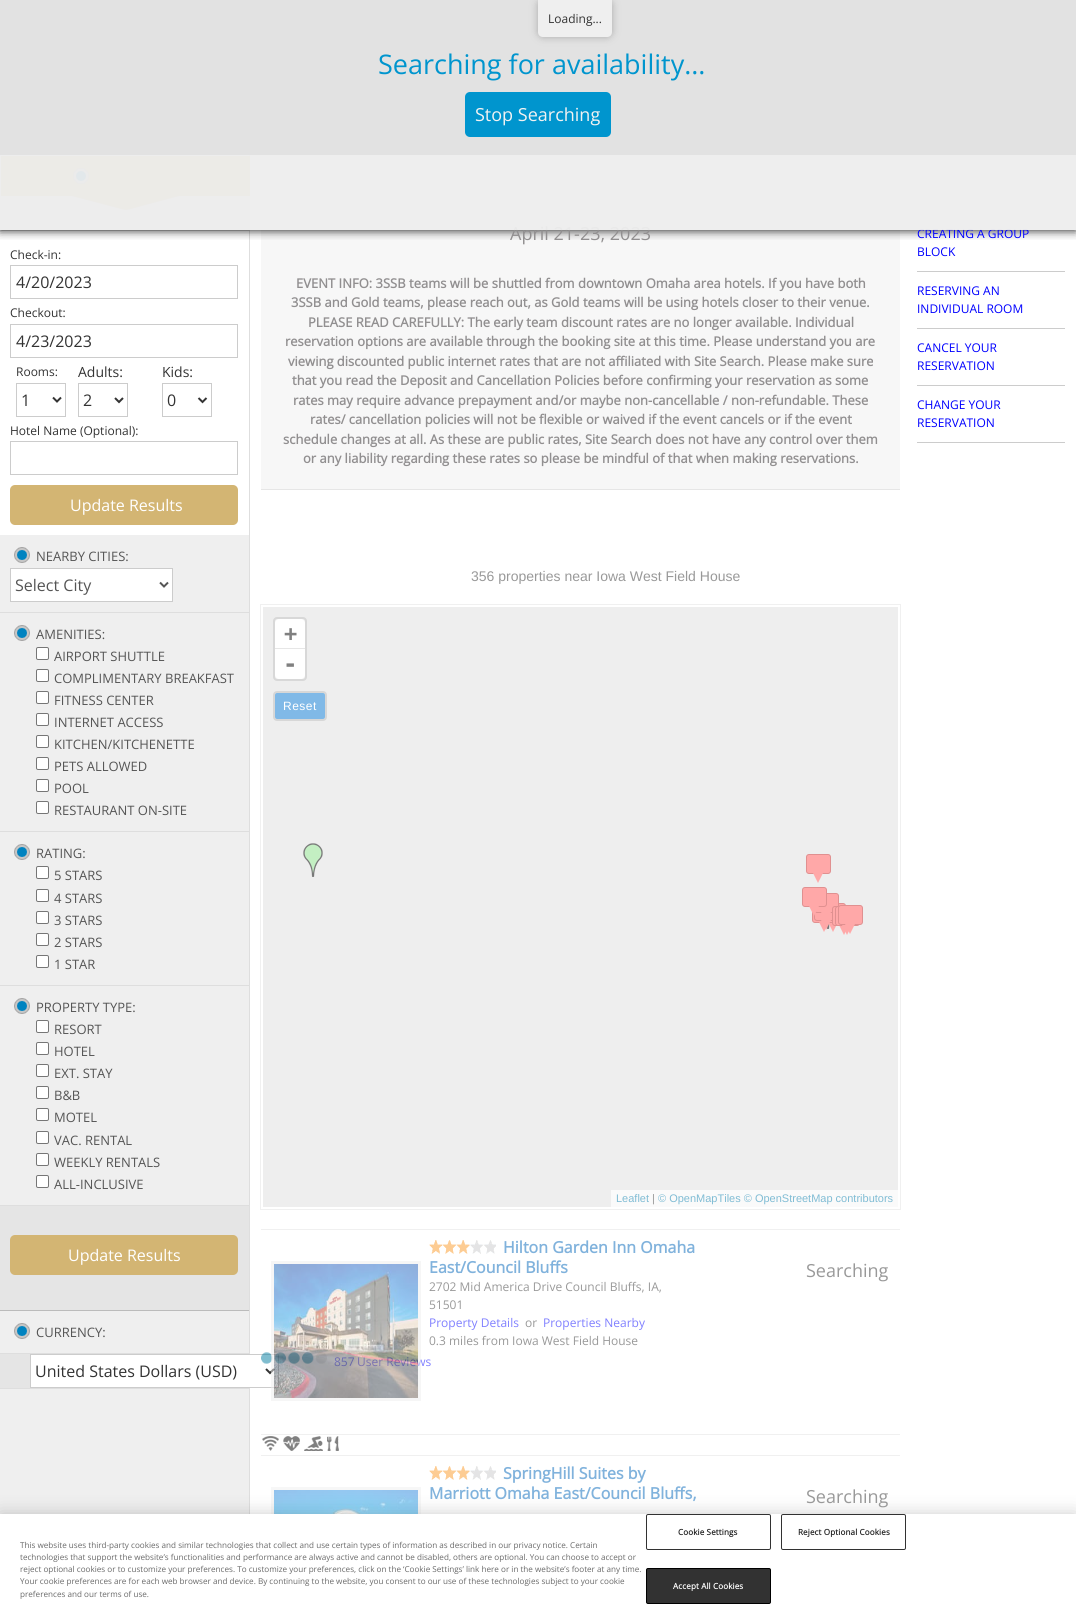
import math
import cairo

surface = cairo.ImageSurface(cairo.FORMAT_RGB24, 1076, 1606)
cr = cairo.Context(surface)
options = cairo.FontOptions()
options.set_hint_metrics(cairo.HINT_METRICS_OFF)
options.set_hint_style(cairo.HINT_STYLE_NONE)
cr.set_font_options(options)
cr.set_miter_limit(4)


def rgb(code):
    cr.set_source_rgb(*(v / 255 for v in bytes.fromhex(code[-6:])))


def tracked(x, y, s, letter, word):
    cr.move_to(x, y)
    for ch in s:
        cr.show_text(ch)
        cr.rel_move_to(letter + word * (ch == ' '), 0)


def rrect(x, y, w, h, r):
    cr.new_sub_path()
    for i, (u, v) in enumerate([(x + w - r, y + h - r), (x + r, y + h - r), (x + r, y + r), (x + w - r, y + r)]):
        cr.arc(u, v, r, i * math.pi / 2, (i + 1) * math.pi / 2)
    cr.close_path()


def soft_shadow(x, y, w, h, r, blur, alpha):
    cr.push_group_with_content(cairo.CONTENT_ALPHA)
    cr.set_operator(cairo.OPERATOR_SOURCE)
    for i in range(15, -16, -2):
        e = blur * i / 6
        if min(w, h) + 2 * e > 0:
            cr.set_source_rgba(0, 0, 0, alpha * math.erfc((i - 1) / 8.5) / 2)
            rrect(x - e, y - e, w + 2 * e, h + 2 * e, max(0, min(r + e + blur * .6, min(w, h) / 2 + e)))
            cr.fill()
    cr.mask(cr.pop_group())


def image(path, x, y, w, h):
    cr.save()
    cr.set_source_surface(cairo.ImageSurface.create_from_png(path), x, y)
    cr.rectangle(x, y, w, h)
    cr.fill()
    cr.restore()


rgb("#ffffff")
cr.paint()
for x, y, w, h, color in [
    (0, 0, 1076, 155, "#000000"),
    (0, 155, 249, 1359, "#efefef"),
    (249, 155, 1, 1359, "#dedede"),
    (0, 180, 249, 1208, "#e5e5e5"),
    (0, 1388, 249, 1, "#dedede"),
    (249, 196, 1, 34, "#e5e5e5"),
]:
    rgb(color)
    cr.rectangle(x, y, w, h)
    cr.fill()
image("img/1.png", 1, 156, 249, 54)
rgb("#dedede")
cr.rectangle(1, 230, 249, 1)
cr.fill()
image("img/2.png", 73, 168, 16, 16)
rgb("#ffffff")
cr.rectangle(0, 231, 249, 304)
cr.fill()
cr.rectangle(10.5, 265.5, 227, 33)
rgb("#cccccc")
cr.set_line_width(1)
cr.stroke()
cr.rectangle(10.5, 324.5, 227, 33)
cr.stroke()
cr.rectangle(16.5, 383.5, 49, 33)
cr.stroke()
cr.new_path()
cr.move_to(53, 397.5)
cr.line_to(57, 401.5)
cr.line_to(61, 397.5)
rgb("#333333")
cr.set_line_width(2)
cr.stroke()
cr.rectangle(78.5, 383.5, 49, 33)
rgb("#cccccc")
cr.set_line_width(1)
cr.stroke()
cr.new_path()
cr.move_to(115, 398)
cr.line_to(119, 402)
cr.line_to(123, 398)
rgb("#333333")
cr.set_line_width(2)
cr.stroke()
cr.rectangle(162.5, 383.5, 49, 33)
rgb("#cccccc")
cr.set_line_width(1)
cr.stroke()
cr.new_path()
cr.move_to(198.5, 398)
cr.line_to(202.5, 402)
cr.line_to(206.5, 398)
rgb("#333333")
cr.set_line_width(2)
cr.stroke()
cr.rectangle(10.5, 441.5, 227, 33)
rgb("#cccccc")
cr.set_line_width(1)
cr.stroke()
rgb("#d3b573")
rrect(10, 485, 228, 40, 5)
cr.fill()
rgb("#efefef")
cr.rectangle(0, 535, 249, 77)
cr.fill()
image("img/3.png", 14, 547, 16, 16)
rgb("#dedede")
cr.rectangle(0, 612, 249, 1)
cr.fill()
rgb("#ffffff")
cr.rectangle(10.5, 568.5, 162, 33)
cr.fill_preserve()
rgb("#cccccc")
cr.stroke()
cr.new_path()
cr.move_to(160, 582.5)
cr.line_to(164, 586.5)
cr.line_to(168, 582.5)
rgb("#555555")
cr.set_line_width(2)
cr.stroke()
rgb("#efefef")
cr.rectangle(0, 613, 249, 218)
cr.fill()
image("img/3.png", 14, 625, 16, 16)
rgb("#dedede")
cr.rectangle(0, 831, 249, 1)
cr.fill()
rgb("#ffffff")
rrect(36.5, 647.5, 12, 12, 1.5)
cr.fill_preserve()
rgb("#767676")
cr.set_line_width(1)
cr.stroke()
rgb("#ffffff")
rrect(36.5, 669.5, 12, 12, 1.5)
cr.fill_preserve()
rgb("#767676")
cr.stroke()
rgb("#ffffff")
rrect(36.5, 691.5, 12, 12, 1.5)
cr.fill_preserve()
rgb("#767676")
cr.stroke()
rgb("#ffffff")
rrect(36.5, 713.5, 12, 12, 1.5)
cr.fill_preserve()
rgb("#767676")
cr.stroke()
rgb("#ffffff")
rrect(36.5, 735.5, 12, 12, 1.5)
cr.fill_preserve()
rgb("#767676")
cr.stroke()
rgb("#ffffff")
rrect(36.5, 757.5, 12, 12, 1.5)
cr.fill_preserve()
rgb("#767676")
cr.stroke()
rgb("#ffffff")
rrect(36.5, 779.5, 12, 12, 1.5)
cr.fill_preserve()
rgb("#767676")
cr.stroke()
rgb("#ffffff")
rrect(36.5, 801.5, 12, 12, 1.5)
cr.fill_preserve()
rgb("#767676")
cr.stroke()
rgb("#efefef")
cr.rectangle(0, 832, 249, 153)
cr.fill()
image("img/3.png", 14, 844, 16, 16)
rgb("#dedede")
cr.rectangle(0, 985, 249, 1)
cr.fill()
rgb("#ffffff")
rrect(36.5, 866.5, 12, 12, 1.5)
cr.fill_preserve()
rgb("#767676")
cr.stroke()
rgb("#ffffff")
rrect(36.5, 889.5, 12, 12, 1.5)
cr.fill_preserve()
rgb("#767676")
cr.stroke()
rgb("#ffffff")
rrect(36.5, 911.5, 12, 12, 1.5)
cr.fill_preserve()
rgb("#767676")
cr.stroke()
rgb("#ffffff")
rrect(36.5, 933.5, 12, 12, 1.5)
cr.fill_preserve()
rgb("#767676")
cr.stroke()
rgb("#ffffff")
rrect(36.5, 955.5, 12, 12, 1.5)
cr.fill_preserve()
rgb("#767676")
cr.stroke()
rgb("#efefef")
cr.rectangle(0, 986, 249, 219)
cr.fill()
image("img/3.png", 14, 998, 16, 16)
rgb("#dedede")
cr.rectangle(0, 1205, 249, 1)
cr.fill()
rgb("#ffffff")
rrect(36.5, 1020.5, 12, 12, 1.5)
cr.fill_preserve()
rgb("#767676")
cr.stroke()
rgb("#ffffff")
rrect(36.5, 1042.5, 12, 12, 1.5)
cr.fill_preserve()
rgb("#767676")
cr.stroke()
rgb("#ffffff")
rrect(36.5, 1064.5, 12, 12, 1.5)
cr.fill_preserve()
rgb("#767676")
cr.stroke()
rgb("#ffffff")
rrect(36.5, 1086.5, 12, 12, 1.5)
cr.fill_preserve()
rgb("#767676")
cr.stroke()
rgb("#ffffff")
rrect(36.5, 1108.5, 12, 12, 1.5)
cr.fill_preserve()
rgb("#767676")
cr.stroke()
rgb("#ffffff")
rrect(36.5, 1131.5, 12, 12, 1.5)
cr.fill_preserve()
rgb("#767676")
cr.stroke()
rgb("#ffffff")
rrect(36.5, 1153.5, 12, 12, 1.5)
cr.fill_preserve()
rgb("#767676")
cr.stroke()
rgb("#ffffff")
rrect(36.5, 1175.5, 12, 12, 1.5)
cr.fill_preserve()
rgb("#767676")
cr.stroke()
rgb("#d3b573")
rrect(10, 1235, 228, 40, 5)
cr.fill()
rgb("#efefef")
cr.rectangle(0, 1311, 249, 42)
cr.fill()
image("img/3.png", 14, 1323, 16, 16)
for x, y, w, h, color in [
    (0, 1310, 249, 1, "#bbbbbb"),
    (0, 1353, 249, 1, "#dedede"),
    (31, 1355, 219, 32, "#ffffff"),
]:
    rgb(color)
    cr.rectangle(x, y, w, h)
    cr.fill()
cr.rectangle(30.5, 1354.5, 248, 33)
rgb("#cccccc")
cr.stroke()
cr.new_path()
cr.move_to(266, 1369)
cr.line_to(270, 1373)
cr.line_to(274, 1369)
rgb("#333333")
cr.set_line_width(2)
cr.stroke()
rgb("#f7f7f7")
cr.rectangle(261, 155, 639, 334)
cr.fill()
cr.save()
cr.rectangle(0, 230, 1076, 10)
cr.clip()
rgb("#000000")
soft_shadow(0, 0, 1076, 230, 0, 5, 0.95)
cr.restore()
rgb("#e6e6e6")
cr.rectangle(261, 489, 639, 1)
cr.fill()
cr.rectangle(260.5, 604.5, 640, 605)
rgb("#f0f0f0")
cr.set_line_width(1)
cr.stroke()
rgb("#eeeeee")
cr.rectangle(263, 607, 635, 600)
cr.fill()
rrect(274, 618, 32, 62, 3)
rgb("#d8d8d8")
cr.set_line_width(2)
cr.stroke()
rgb("#ffffff")
cr.new_path()
cr.move_to(279, 619)
cr.line_to(301, 619)
cr.curve_to(303, 619, 305, 621, 305, 623)
cr.line_to(305, 649)
cr.line_to(275, 649)
cr.line_to(275, 623)
cr.curve_to(275, 621, 277, 619, 279, 619)
cr.close_path()
cr.fill()
rgb("#e6e6e6")
cr.rectangle(275, 648, 30, 1)
cr.fill()
rgb("#ffffff")
cr.new_path()
cr.move_to(275, 649)
cr.line_to(305, 649)
cr.line_to(305, 675)
cr.curve_to(305, 677, 303, 679, 301, 679)
cr.line_to(279, 679)
cr.curve_to(277, 679, 275, 677, 275, 675)
cr.close_path()
cr.fill()
rgb("#80b9e7")
rrect(275, 693, 50, 26, 2)
cr.fill()
rrect(274, 692, 52, 28, 3)
cr.set_source_rgba(0.502, 0.502, 0.502, 0.2)
cr.stroke()
rgb("#fafafa")
cr.rectangle(611, 1190, 287, 17)
cr.fill()
image("img/4.png", 303, 843, 20, 34)
rgb("#ffa8a8")
rrect(806.5, 854.5, 24, 19, 2.5)
cr.fill_preserve()
rgb("#e09090")
cr.set_line_width(1)
cr.stroke()
rgb("#ffa8a8")
cr.new_path()
cr.move_to(813, 873)
cr.line_to(823, 873)
cr.line_to(818, 883)
cr.close_path()
cr.fill()
rrect(821.5, 903.5, 24, 19, 2.5)
cr.fill_preserve()
rgb("#e09090")
cr.stroke()
image("img/5.png", 827, 924, 3, 5)
rgb("#ffa8a8")
cr.new_path()
cr.move_to(828, 922)
cr.line_to(838, 922)
cr.line_to(833, 932)
cr.close_path()
cr.fill()
rrect(812.5, 903.5, 24, 19, 2.5)
cr.fill_preserve()
rgb("#e09090")
cr.stroke()
rrect(814.5, 900.5, 24, 19, 2.5)
cr.stroke()
rgb("#ffa8a8")
rrect(814.5, 901.5, 24, 19, 2.5)
cr.fill_preserve()
rgb("#e09090")
cr.stroke()
rgb("#ffa8a8")
rrect(814.5, 893.5, 24, 19, 2.5)
cr.fill_preserve()
rgb("#e09090")
cr.stroke()
rgb("#ffa8a8")
rrect(802.5, 887.5, 24, 19, 2.5)
cr.fill_preserve()
rgb("#e09090")
cr.stroke()
rgb("#ffa8a8")
cr.new_path()
cr.move_to(809, 906)
cr.line_to(819, 906)
cr.line_to(814, 916)
cr.close_path()
cr.fill()
cr.new_path()
cr.move_to(819, 922)
cr.line_to(829, 922)
cr.line_to(824, 932)
cr.close_path()
cr.fill()
cr.new_path()
cr.move_to(821, 920)
cr.line_to(831, 920)
cr.line_to(826, 930)
cr.close_path()
cr.fill()
cr.new_path()
cr.move_to(821, 912)
cr.line_to(831, 912)
cr.line_to(826, 922)
cr.close_path()
cr.fill()
rrect(832.5, 906.5, 24, 19, 2.5)
cr.fill_preserve()
rgb("#e09090")
cr.stroke()
rgb("#ffa8a8")
cr.new_path()
cr.move_to(839, 925)
cr.line_to(849, 925)
cr.line_to(844, 935)
cr.close_path()
cr.fill()
rrect(835.5, 906.5, 24, 19, 2.5)
cr.fill_preserve()
rgb("#e09090")
cr.stroke()
rgb("#ffa8a8")
rrect(838.5, 905.5, 24, 19, 2.5)
cr.fill_preserve()
rgb("#e09090")
cr.stroke()
rgb("#ffa8a8")
cr.new_path()
cr.move_to(842, 925)
cr.line_to(852, 925)
cr.line_to(847, 935)
cr.close_path()
cr.fill()
cr.new_path()
cr.move_to(845, 924)
cr.line_to(855, 924)
cr.line_to(850, 934)
cr.close_path()
cr.fill()
rgb("#f0f0f0")
cr.rectangle(261, 1229, 639, 1)
cr.fill()
cr.rectangle(261, 1434, 639, 1)
cr.fill()
image("img/6.png", 429, 1240, 67, 14)
image("img/8.png", 261, 1352, 66, 12)
image("img/9.png", 262, 1436, 17, 15)
image("img/10.png", 283, 1436, 17, 15)
image("img/11.png", 304, 1436, 19, 15)
image("img/12.png", 327, 1436, 12, 15)
cr.rectangle(261, 1455, 639, 1)
cr.fill()
image("img/6.png", 429, 1466, 67, 14)
cr.rectangle(272.5, 1488.5, 147, 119)
rgb("#f7f7f7")
cr.set_line_width(3)
cr.stroke()
image("img/13.png", 274, 1490, 144, 24)
for x, y, w, h, color in [
    (917, 271, 148, 1, "#cccccc"),
    (917, 328, 148, 1, "#cccccc"),
    (917, 385, 148, 1, "#cccccc"),
    (917, 442, 148, 1, "#cccccc"),
]:
    rgb(color)
    cr.rectangle(x, y, w, h)
    cr.fill()
rgb("#000000")
soft_shadow(0, 1514, 1076, 92, 0, 9, 0.2)
rgb("#ffffff")
cr.rectangle(0, 1514, 1076, 92)
cr.fill()
rrect(646.5, 1514.5, 124, 35, 1.5)
rgb("#323232")
cr.set_line_width(1)
cr.stroke()
rrect(781.5, 1514.5, 124, 35, 1.5)
cr.stroke()
rrect(646.5, 1568.5, 124, 35, 1.5)
cr.fill_preserve()
rgb("#000000")
cr.stroke()
cr.select_font_face("Open Sans")
cr.set_font_size(12)
rgb("#333333")
cr.move_to(10, 259)
cr.show_text("Check-in:")
cr.set_font_size(16)
cr.move_to(16, 288)
cr.show_text("4/20/2023")
cr.set_font_size(12)
cr.move_to(10, 317)
cr.show_text("Checkout:")
cr.set_font_size(16)
cr.move_to(16, 347)
cr.show_text("4/23/2023")
cr.set_font_size(12)
cr.move_to(16, 376)
cr.show_text("Rooms:")
cr.set_font_size(16)
cr.move_to(21, 406)
cr.show_text("1")
cr.set_font_size(14)
cr.move_to(78, 377)
cr.show_text("Adults:")
cr.set_font_size(16)
cr.move_to(83, 406)
cr.show_text("2")
cr.set_font_size(14)
cr.move_to(162, 377)
cr.show_text("Kids:")
cr.set_font_size(16)
cr.move_to(167, 406)
cr.show_text("0")
cr.set_font_size(12)
cr.move_to(10, 435)
cr.show_text("Hotel Name (Optional):")
cr.set_font_size(16)
rgb("#ffffff")
cr.move_to(70, 511)
cr.show_text("Update Results")
cr.set_font_size(13)
rgb("#555555")
cr.move_to(36, 561)
cr.show_text("NEARBY CITIES:")
cr.set_font_size(16)
cr.move_to(15, 591)
cr.show_text("Select City")
cr.set_font_size(13)
for x, y, s in [
    (36, 639, "AMENITIES:"),
    (54, 661, "AIRPORT SHUTTLE"),
    (54, 683, "COMPLIMENTARY BREAKFAST"),
    (54, 705, "FITNESS CENTER"),
    (54, 727, "INTERNET ACCESS"),
    (54, 749, "KITCHEN/KITCHENETTE"),
    (54, 771, "PETS ALLOWED"),
    (54, 793, "POOL"),
    (54, 815, "RESTAURANT ON-SITE"),
    (36, 858, "RATING:"),
    (54, 880, "5 STARS"),
    (54, 903, "4 STARS"),
    (54, 925, "3 STARS"),
    (54, 947, "2 STARS"),
    (54, 969, "1 STAR"),
    (36, 1012, "PROPERTY TYPE:"),
    (54, 1034, "RESORT"),
    (54, 1056, "HOTEL"),
    (54, 1078, "EXT. STAY"),
    (54, 1100, "B&B"),
    (54, 1122, "MOTEL"),
    (54, 1145, "VAC. RENTAL"),
    (54, 1167, "WEEKLY RENTALS"),
    (54, 1189, "ALL-INCLUSIVE"),
]:
    cr.move_to(x, y)
    cr.show_text(s)
cr.set_font_size(16)
rgb("#ffffff")
cr.move_to(68, 1261)
cr.show_text("Update Results")
cr.set_font_size(13)
rgb("#555555")
cr.move_to(36, 1337)
cr.show_text("CURRENCY:")
cr.set_font_size(16)
rgb("#333333")
cr.move_to(35, 1377)
cr.show_text("United States Dollars (USD)")
cr.set_font_size(18)
rgb("#918f90")
cr.move_to(510, 240)
cr.show_text("April 21-23, 2023")
cr.select_font_face("Open Sans", cairo.FONT_SLANT_NORMAL, cairo.FONT_WEIGHT_BOLD)
cr.set_font_size(13)
for x, y, s in [
    (296, 288, "EVENT INFO: 3SSB teams will be shuttled from downtown Omaha area hotels. If you have both"),
    (291, 307, "3SSB and Gold teams, please reach out, as Gold teams will be using hotels closer to their venue."),
    (308, 327, "PLEASE READ CAREFULLY: The early team discount rates are no longer available. Individual"),
    (285, 346, "reservation options are available through the booking site at this time. Please understand you are"),
    (288, 366, "viewing discounted public internet rates that are not affiliated with Site Search. Please make sure"),
    (292, 385, "that you read the Deposit and Cancellation Policies before confirming your reservation as some"),
    (293, 405, "rates may require advance prepayment and/or maybe non-cancellable / non-refundable. These"),
    (310, 424, "rates/ cancellation policies will not be flexible or waived if the event cancels or if the event"),
    (283, 444, "schedule changes at all. As these are public rates, Site Search does not have any control over them"),
    (303, 463, "or any liability regarding these rates so please be mindful of that when making reservations."),
]:
    cr.move_to(x, y)
    cr.show_text(s)
cr.select_font_face("Liberation Sans")
cr.set_font_size(14)
rgb("#999999")
cr.move_to(471, 581)
cr.show_text("356 properties near Iowa West Field House")
cr.select_font_face("DejaVu Sans Mono", cairo.FONT_SLANT_NORMAL, cairo.FONT_WEIGHT_BOLD)
cr.set_font_size(22)
rgb("#808080")
cr.move_to(284, 641)
cr.show_text("+")
cr.set_font_size(24)
cr.move_to(283, 672)
cr.show_text("-")
cr.select_font_face("Liberation Sans")
cr.set_font_size(12)
rgb("#ffffff")
tracked(283, 710, "Reset", 0.5, 0)
cr.set_font_size(11)
rgb("#80bcd4")
cr.move_to(616, 1202)
cr.show_text("Leaflet")
rgb("#999999")
cr.move_to(652, 1202)
cr.show_text("|")
rgb("#80bcd4")
cr.move_to(658, 1202)
cr.show_text("© OpenMapTiles © OpenStreetMap contributors")
cr.select_font_face("Open Sans", cairo.FONT_SLANT_NORMAL, cairo.FONT_WEIGHT_BOLD)
cr.set_font_size(16)
rgb("#80b2dc")
cr.move_to(503, 1253)
cr.show_text("Hilton Garden Inn Omaha")
cr.move_to(429, 1273)
cr.show_text("East/Council Bluffs")
cr.select_font_face("Open Sans")
cr.set_font_size(12)
rgb("#999999")
cr.move_to(429, 1291)
cr.show_text("2702 Mid America Drive Council Bluffs, IA,")
cr.move_to(429, 1309)
cr.show_text("51501")
rgb("#8080ff")
cr.move_to(429, 1327)
cr.show_text("Property Details")
rgb("#999999")
cr.move_to(525, 1327)
cr.show_text("or")
rgb("#8080ff")
cr.move_to(543, 1327)
cr.show_text("Properties Nearby")
rgb("#999999")
cr.move_to(429, 1345)
cr.show_text("0.3 miles from Iowa West Field House")
cr.set_font_size(18)
cr.move_to(806, 1277)
cr.show_text("Searching")
cr.set_font_size(12)
rgb("#8080ff")
cr.move_to(334, 1366)
cr.show_text("857")
cr.move_to(357, 1366)
cr.show_text("User Reviews")
cr.rectangle(272.5, 1262.5, 147, 137)
cr.set_source_rgba(0.933, 0.933, 0.933, 0.5)
cr.set_line_width(3)
cr.stroke()
image("img/7.png", 274, 1264, 144, 134)
cr.select_font_face("Open Sans", cairo.FONT_SLANT_NORMAL, cairo.FONT_WEIGHT_BOLD)
cr.set_font_size(16)
rgb("#80b2dc")
cr.move_to(503, 1479)
cr.show_text("SpringHill Suites by")
cr.move_to(429, 1499)
cr.show_text("Marriott Omaha East/Council Bluffs,")
cr.select_font_face("Open Sans")
cr.set_font_size(18)
rgb("#999999")
cr.move_to(806, 1503)
cr.show_text("Searching")
cr.set_font_size(12)
rgb("#0000ff")
cr.move_to(917, 238)
cr.show_text("CREATING A GROUP")
cr.set_source_rgba(0.933, 0.933, 0.933, 0.95)
cr.rectangle(0, 0, 1076, 230)
cr.fill()
rgb("#aaaaaa")
soft_shadow(538, 0, 74, 37, 5, 4, 1)
rgb("#efefef")
cr.new_path()
cr.move_to(538, 0)
cr.line_to(612, 0)
cr.line_to(612, 32)
cr.curve_to(612, 35, 610, 37, 607, 37)
cr.line_to(543, 37)
cr.curve_to(540, 37, 538, 35, 538, 32)
cr.close_path()
cr.fill()
rgb("#333333")
cr.move_to(548, 23)
cr.show_text("Loading...")
rgb("#0095ce")
rrect(465, 92, 146, 45, 5)
cr.fill()
cr.set_font_size(18)
rgb("#f2f2f2")
cr.move_to(475, 121)
cr.show_text("Stop Searching")
cr.set_font_size(27)
rgb("#0095ce")
cr.move_to(378, 74)
cr.show_text("Searching for availability...")
cr.set_font_size(12)
rgb("#0000ff")
for x, y, s in [
    (917, 256, "BLOCK"),
    (917, 295, "RESERVING AN"),
    (917, 313, "INDIVIDUAL ROOM"),
    (917, 352, "CANCEL YOUR"),
    (917, 370, "RESERVATION"),
    (917, 409, "CHANGE YOUR"),
    (917, 427, "RESERVATION"),
]:
    cr.move_to(x, y)
    cr.show_text(s)
cr.set_font_size(8.13)
rgb("#696969")
for x, y, s in [
    (20, 1548, "This website uses third-party cookies and similar technologies that collect and use certain types of information as described in our privacy notice. Certain"),
    (20, 1560, "technologies that support the website’s functionalities and performance are always active and cannot be disabled, others are optional. You can choose to accept or"),
    (20, 1572, "reject optional cookies or to customize your preferences. To customize your preferences, click on the ‘Cookie Settings’ link here or in the website’s footer at any time."),
    (20, 1584, "Your cookie preferences are for each web browser and device. By continuing to the website, you consent to our use of these technologies subject to your cookie"),
    (20, 1597, "preferences and our terms of use."),
]:
    cr.move_to(x, y)
    cr.show_text(s)
cr.select_font_face("Open Sans", cairo.FONT_SLANT_NORMAL, cairo.FONT_WEIGHT_BOLD)
rgb("#222222")
tracked(678, 1535, "Cookie Settings", 0.1, 0)
tracked(798, 1535, "Reject Optional Cookies", 0.1, 0)
rgb("#ffffff")
tracked(673, 1589, "Accept All Cookies", 0.1, 0)
surface.write_to_png("page.png")
